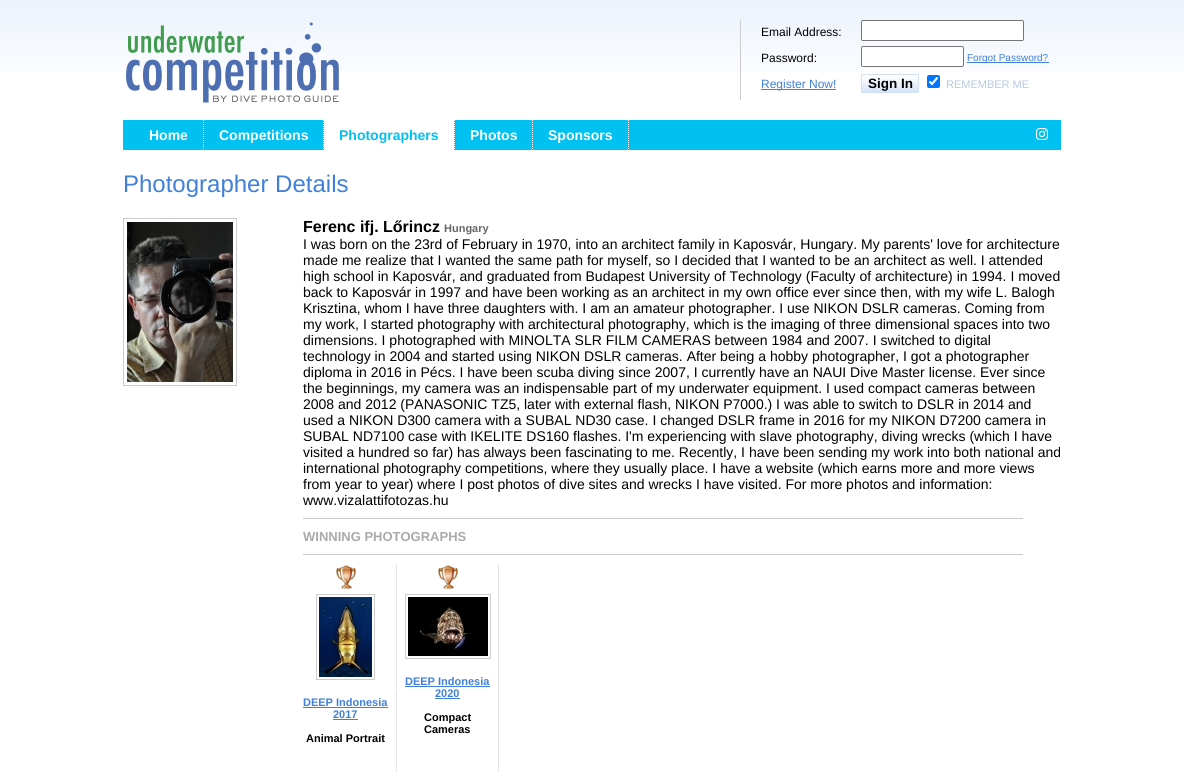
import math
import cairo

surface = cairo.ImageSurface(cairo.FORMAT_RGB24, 1184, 773)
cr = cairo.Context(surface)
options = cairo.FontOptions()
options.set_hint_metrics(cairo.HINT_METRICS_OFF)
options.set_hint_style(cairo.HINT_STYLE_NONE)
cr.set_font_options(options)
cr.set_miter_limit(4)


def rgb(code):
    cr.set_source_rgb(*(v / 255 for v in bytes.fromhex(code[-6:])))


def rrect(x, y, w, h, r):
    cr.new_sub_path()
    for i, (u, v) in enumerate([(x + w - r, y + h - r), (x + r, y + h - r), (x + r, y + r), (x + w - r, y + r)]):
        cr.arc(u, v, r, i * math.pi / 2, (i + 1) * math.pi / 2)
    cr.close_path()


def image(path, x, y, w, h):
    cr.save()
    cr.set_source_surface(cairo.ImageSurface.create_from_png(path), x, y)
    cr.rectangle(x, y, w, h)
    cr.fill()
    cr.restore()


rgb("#ffffff")
cr.paint()
image("img/1.png", 0, 0, 1184, 72)
image("img/2.png", 126, 22, 213, 81)
rgb("#cccccc")
cr.rectangle(740, 20, 1, 80)
cr.fill()
rgb("#ffffff")
rrect(861.5, 20.5, 162, 20, 1.5)
cr.fill_preserve()
rgb("#767676")
cr.set_line_width(1)
cr.stroke()
rgb("#ffffff")
rrect(861.5, 46.5, 102, 20, 1.5)
cr.fill_preserve()
rgb("#767676")
cr.stroke()
rgb("#4080db")
cr.rectangle(967, 62, 82, 1)
cr.fill()
cr.rectangle(761, 89, 75, 1)
cr.fill()
image("img/3.png", 862, 75, 56, 17)
cr.rectangle(861.5, 74.5, 57, 18)
rgb("#d3e0f3")
cr.stroke()
rgb("#0075ff")
rrect(927, 75, 13, 13, 2)
cr.fill()
cr.new_path()
cr.move_to(929.5, 81.5)
cr.line_to(932, 84)
cr.line_to(937.5, 77.5)
rgb("#ffffff")
cr.set_line_width(2.1)
cr.stroke()
rgb("#00c1f2")
cr.rectangle(123, 120, 938, 30)
cr.fill()
cr.new_path()
cr.move_to(203.5, 120)
cr.line_to(203.5, 150)
rgb("#ffffff")
cr.set_line_width(1)
cr.set_dash([1, 1])
cr.stroke()
cr.new_path()
cr.move_to(323.5, 120)
cr.line_to(323.5, 150)
cr.stroke()
cr.new_path()
cr.move_to(454.5, 120)
cr.line_to(454.5, 150)
cr.stroke()
cr.rectangle(324, 120, 130, 30)
cr.fill()
cr.new_path()
cr.move_to(532.5, 120)
cr.line_to(532.5, 150)
cr.stroke()
cr.new_path()
cr.move_to(628.5, 120)
cr.line_to(628.5, 150)
cr.stroke()
image("img/4.png", 1036, 128, 12, 12)
cr.rectangle(123.5, 218.5, 113, 167)
rgb("#cccccc")
cr.set_dash([])
cr.stroke()
image("img/5.png", 127, 222, 106, 160)
cr.rectangle(303, 518, 720, 1)
cr.fill()
cr.rectangle(303, 554, 720, 1)
cr.fill()
cr.new_path()
cr.move_to(396.5, 565)
cr.line_to(396.5, 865)
cr.set_dash([1, 1])
cr.stroke()
image("img/6.png", 336, 565, 20, 24)
cr.rectangle(316.5, 594.5, 58, 85)
cr.set_dash([])
cr.stroke()
image("img/7.png", 319, 597, 53, 80)
rgb("#4080db")
cr.rectangle(303, 707, 85, 1)
cr.fill()
cr.rectangle(333, 719, 25, 1)
cr.fill()
cr.new_path()
cr.move_to(498.5, 565)
cr.line_to(498.5, 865)
rgb("#cccccc")
cr.set_dash([1, 1])
cr.stroke()
image("img/6.png", 438, 565, 20, 24)
cr.rectangle(405.5, 594.5, 85, 64)
cr.set_dash([])
cr.stroke()
image("img/8.png", 408, 597, 80, 59)
rgb("#4080db")
cr.rectangle(405, 686, 85, 1)
cr.fill()
cr.rectangle(435, 698, 25, 1)
cr.fill()
cr.select_font_face("Liberation Sans")
cr.set_font_size(12)
rgb("#000000")
cr.move_to(761, 36)
cr.show_text("Email Address:")
cr.move_to(761, 62)
cr.show_text("Password:")
cr.set_font_size(10)
rgb("#4080db")
cr.move_to(967, 61)
cr.show_text("Forgot Password?")
cr.set_font_size(12)
cr.move_to(761, 88)
cr.show_text("Register Now!")
cr.select_font_face("Liberation Sans", cairo.FONT_SLANT_NORMAL, cairo.FONT_WEIGHT_BOLD)
cr.set_font_size(13.5)
rgb("#000000")
cr.move_to(868, 88)
cr.show_text("Sign In")
cr.select_font_face("Liberation Sans")
cr.set_font_size(11)
rgb("#b8c8e1")
cr.move_to(946, 88)
cr.show_text("REMEMBER ME")
cr.select_font_face("Liberation Sans", cairo.FONT_SLANT_NORMAL, cairo.FONT_WEIGHT_BOLD)
cr.set_font_size(14)
rgb("#ffffff")
cr.move_to(149, 140)
cr.show_text("Home")
cr.move_to(219, 140)
cr.show_text("Competitions")
rgb("#00c1f2")
cr.move_to(339, 140)
cr.show_text("Photographers")
rgb("#ffffff")
cr.move_to(470, 140)
cr.show_text("Photos")
cr.move_to(548, 140)
cr.show_text("Sponsors")
cr.select_font_face("Liberation Sans")
cr.set_font_size(24)
rgb("#4080db")
cr.move_to(123, 192)
cr.show_text("Photographer Details")
cr.select_font_face("Liberation Sans", cairo.FONT_SLANT_NORMAL, cairo.FONT_WEIGHT_BOLD)
cr.set_font_size(16)
rgb("#000000")
cr.move_to(303, 232)
cr.show_text("Ferenc ifj. Lőrincz")
cr.set_font_size(11)
rgb("#666666")
cr.move_to(444, 232)
cr.show_text("Hungary")
cr.select_font_face("Liberation Sans")
cr.set_font_size(14)
rgb("#000000")
for x, y, s in [
    (303, 249, "I was born on the 23rd of February in 1970, into an architect family in Kaposvár, Hungary. My parents' love for architecture"),
    (303, 265, "made me realize that I wanted the same path for myself, so I decided that I wanted to be an architect as well. I attended"),
    (303, 281, "high school in Kaposvár, and graduated from Budapest University of Technology (Faculty of architecture) in 1994. I moved"),
    (303, 297, "back to Kaposvár in 1997 and have been working as an architect in my own office ever since then, with my wife L. Balogh"),
    (303, 313, "Krisztina, whom I have three daughters with. I am an amateur photographer. I use NIKON DSLR cameras. Coming from"),
    (303, 329, "my work, I started photography with architectural photography, which is the imaging of three dimensional spaces into two"),
    (303, 345, "dimensions. I photographed with MINOLTA SLR FILM CAMERAS between 1984 and 2007. I switched to digital"),
    (303, 361, "technology in 2004 and started using NIKON DSLR cameras. After being a hobby photographer, I got a photographer"),
    (303, 377, "diploma in 2016 in Pécs. I have been scuba diving since 2007, I currently have an NAUI Dive Master license. Ever since"),
    (303, 393, "the beginnings, my camera was an indispensable part of my underwater equipment. I used compact cameras between"),
    (303, 409, "2008 and 2012 (PANASONIC TZ5, later with external flash, NIKON P7000.) I was able to switch to DSLR in 2014 and"),
    (303, 425, "used a NIKON D300 camera with a SUBAL ND30 case. I changed DSLR frame in 2016 for my NIKON D7200 camera in"),
    (303, 441, "SUBAL ND7100 case with IKELITE DS160 flashes. I'm experiencing with slave photography, diving wrecks (which I have"),
    (303, 457, "visited a hundred so far) has always been fascinating to me. Recently, I have been sending my work into both national and"),
    (303, 473, "international photography competitions, where they usually place. I have a website (which earns more and more views"),
    (303, 489, "from year to year) where I post photos of dive sites and wrecks I have visited. For more photos and information:"),
    (303, 505, "www.vizalattifotozas.hu"),
]:
    cr.move_to(x, y)
    cr.show_text(s)
cr.select_font_face("Liberation Sans", cairo.FONT_SLANT_NORMAL, cairo.FONT_WEIGHT_BOLD)
cr.set_font_size(13)
rgb("#aaaaaa")
cr.move_to(303, 541)
cr.show_text("WINNING PHOTOGRAPHS")
cr.set_font_size(11)
rgb("#4080db")
cr.move_to(303, 706)
cr.show_text("DEEP Indonesia")
cr.move_to(333, 718)
cr.show_text("2017")
rgb("#000000")
cr.move_to(306, 742)
cr.show_text("Animal Portrait")
rgb("#4080db")
cr.move_to(405, 685)
cr.show_text("DEEP Indonesia")
cr.move_to(435, 697)
cr.show_text("2020")
rgb("#000000")
cr.move_to(424, 721)
cr.show_text("Compact")
cr.move_to(424, 733)
cr.show_text("Cameras")
surface.write_to_png("page.png")
